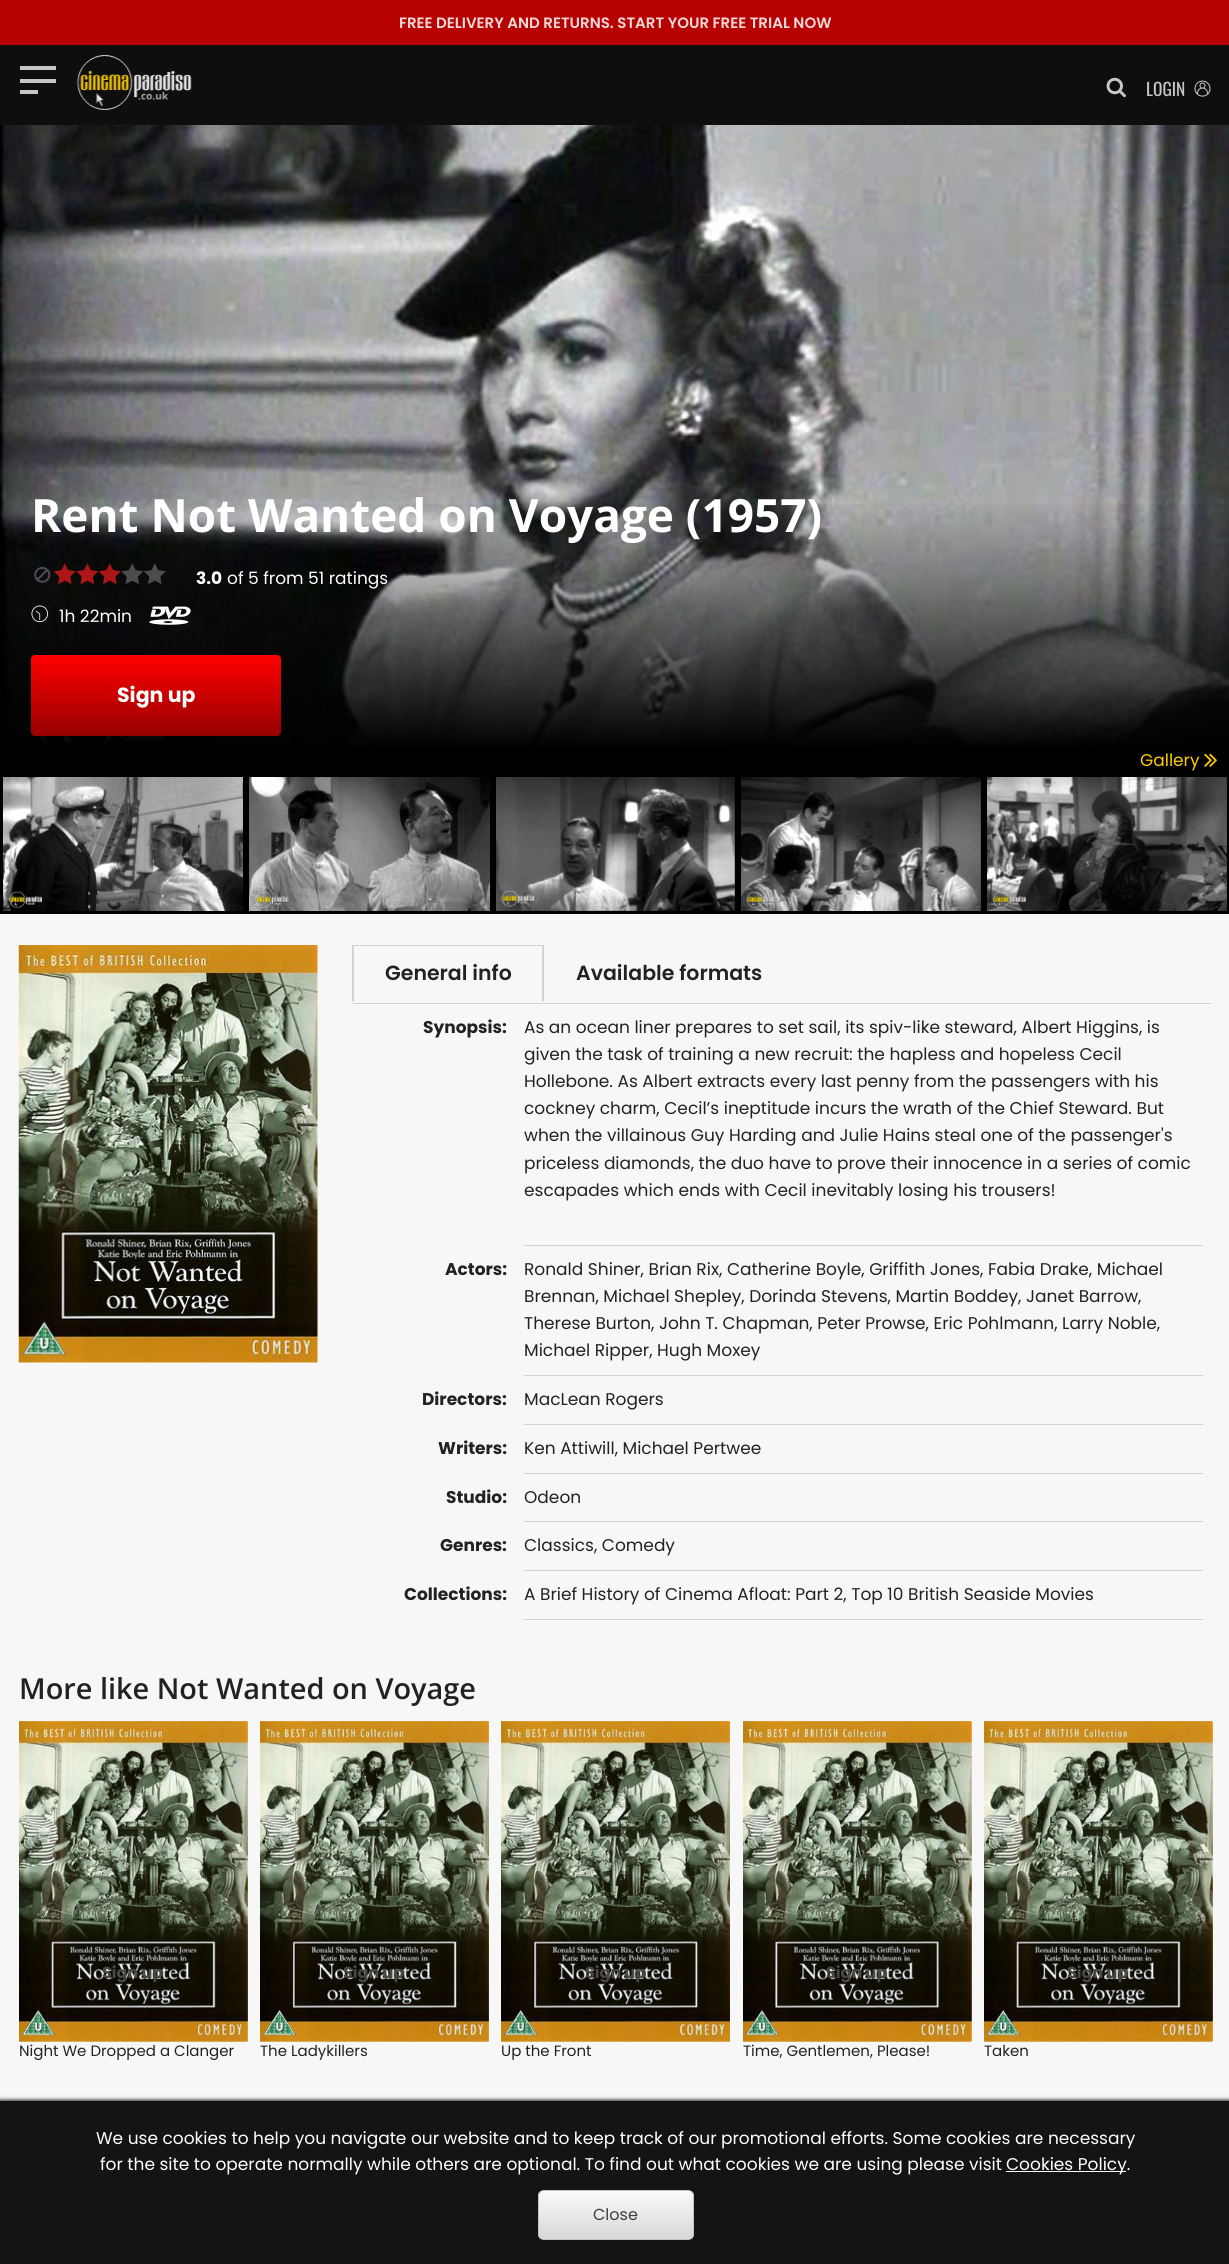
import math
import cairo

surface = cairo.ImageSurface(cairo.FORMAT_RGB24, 1229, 2264)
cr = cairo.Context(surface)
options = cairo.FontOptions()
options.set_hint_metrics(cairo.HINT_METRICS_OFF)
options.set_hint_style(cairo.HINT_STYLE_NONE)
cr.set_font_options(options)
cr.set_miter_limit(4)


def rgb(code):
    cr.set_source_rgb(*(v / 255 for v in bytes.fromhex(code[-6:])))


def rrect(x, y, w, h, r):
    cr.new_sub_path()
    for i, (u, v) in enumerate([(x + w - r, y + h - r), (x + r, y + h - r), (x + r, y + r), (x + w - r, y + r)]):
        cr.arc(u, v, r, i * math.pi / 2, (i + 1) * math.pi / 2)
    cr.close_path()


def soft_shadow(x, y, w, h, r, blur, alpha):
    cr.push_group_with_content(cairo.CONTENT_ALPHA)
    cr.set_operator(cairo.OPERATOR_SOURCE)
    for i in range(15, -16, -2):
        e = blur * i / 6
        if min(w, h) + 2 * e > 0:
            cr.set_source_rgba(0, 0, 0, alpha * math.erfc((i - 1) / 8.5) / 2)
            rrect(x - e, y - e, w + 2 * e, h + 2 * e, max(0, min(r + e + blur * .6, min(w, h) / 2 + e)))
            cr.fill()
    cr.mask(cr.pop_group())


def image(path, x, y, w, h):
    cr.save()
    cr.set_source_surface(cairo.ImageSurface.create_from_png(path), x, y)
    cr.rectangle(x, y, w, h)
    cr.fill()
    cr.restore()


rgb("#000000")
cr.paint()
for x, y, w, h, color in [
    (0, 0, 1229, 45, "#b70202"),
    (0, 45, 1229, 80, "#0e0e0e"),
    (20, 79, 36, 4, "#c6c6c6"),
    (20, 66, 36, 4, "#c6c6c6"),
    (20, 90, 18, 4, "#c6c6c6"),
]:
    rgb(color)
    cr.rectangle(x, y, w, h)
    cr.fill()
image("img/1.png", 77, 55, 115, 55)
image("img/2.png", 1106, 77, 20, 21)
image("img/3.png", 1194, 80, 17, 17)
image("img/4.png", 0, 125, 1229, 623)
gradient = cairo.LinearGradient(615, 749, 615, 499)
gradient.add_color_stop_rgba(0, 0, 0, 0, 1)
gradient.add_color_stop_rgba(1, 0, 0, 0, 0)
cr.set_source(gradient)
cr.rectangle(0, 504, 1229, 244)
cr.fill()
image("img/5.png", 34, 567, 17, 16)
image("img/6.png", 53, 563, 23, 22)
image("img/7.png", 76, 563, 23, 22)
image("img/8.png", 98, 563, 23, 22)
image("img/9.png", 121, 563, 23, 21)
image("img/10.png", 144, 563, 22, 21)
image("img/11.png", 31, 605, 17, 18)
image("img/12.png", 149, 606, 42, 19)
gradient = cairo.LinearGradient(31, 655, 31, 736)
gradient.add_color_stop_rgba(0, 1, 0, 0, 1)
gradient.add_color_stop_rgba(1, 0.588, 0, 0, 1)
cr.set_source(gradient)
rrect(31, 655, 250, 81, 4)
cr.fill()
image("img/13.png", 1204, 753, 13, 14)
image("img/14.png", 3, 777, 240, 134)
image("img/15.png", 249, 777, 241, 134)
image("img/16.png", 496, 777, 239, 134)
image("img/17.png", 741, 777, 240, 134)
image("img/18.png", 987, 777, 240, 134)
rgb("#f7f7f7")
cr.rectangle(0, 914, 1229, 1187)
cr.fill()
image("img/19.png", 18, 945, 300, 418)
rgb("#d2d2d2")
cr.rectangle(353, 1003, 858, 1)
cr.fill()
cr.new_path()
cr.move_to(352, 945)
cr.line_to(544, 945)
cr.line_to(542, 946)
cr.line_to(354, 946)
cr.close_path()
cr.fill()
cr.set_source_rgba(0, 0, 0, 0.15)
cr.new_path()
cr.move_to(544, 945)
cr.line_to(544, 1002)
cr.line_to(542, 1001)
cr.line_to(542, 946)
cr.close_path()
cr.fill()
rgb("#f7f7f7")
cr.new_path()
cr.move_to(544, 1002)
cr.line_to(352, 1002)
cr.line_to(354, 1001)
cr.line_to(542, 1001)
cr.close_path()
cr.fill()
cr.set_source_rgba(0, 0, 0, 0.15)
cr.new_path()
cr.move_to(352, 1002)
cr.line_to(352, 945)
cr.line_to(354, 946)
cr.line_to(354, 1001)
cr.close_path()
cr.fill()
for x, y, w, h, color in [
    (524, 1245, 679, 1, "#d2d2d2"),
    (524, 1375, 679, 1, "#d2d2d2"),
    (524, 1424, 679, 1, "#d2d2d2"),
    (524, 1473, 679, 1, "#d2d2d2"),
    (524, 1521, 679, 1, "#d2d2d2"),
    (524, 1570, 679, 1, "#d2d2d2"),
    (524, 1619, 679, 1, "#d2d2d2"),
]:
    rgb(color)
    cr.rectangle(x, y, w, h)
    cr.fill()
image("img/20.png", 19, 1721, 229, 321)
image("img/21.png", 19, 1721, 229, 321)
image("img/22.png", 260, 1721, 229, 321)
image("img/23.png", 260, 1721, 229, 321)
image("img/24.png", 501, 1721, 229, 321)
image("img/25.png", 501, 1721, 229, 321)
image("img/26.png", 743, 1721, 229, 321)
image("img/27.png", 743, 1721, 229, 321)
image("img/20.png", 984, 1721, 229, 321)
image("img/21.png", 984, 1721, 229, 321)
rgb("#1c1c21")
soft_shadow(0, 2100, 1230, 164, 0, 2, 1)
rgb("#141414")
cr.rectangle(0, 2101, 1229, 163)
cr.fill()
rgb("#ffffff")
cr.rectangle(1006, 2171, 120, 1)
cr.fill()
cr.save()
rrect(538, 2190, 156, 50, 6)
cr.clip()
gradient = cairo.LinearGradient(616, 2191, 616, 2239)
gradient.add_color_stop_rgba(0, 0.98, 0.98, 0.98, 1)
gradient.add_color_stop_rgba(1, 0.847, 0.847, 0.847, 1)
cr.set_source(gradient)
cr.rectangle(538, 2191, 156, 48)
cr.fill()
cr.restore()
rrect(538.5, 2190.5, 155, 49, 5.5)
rgb("#c7c2c2")
cr.set_line_width(1)
cr.stroke()
cr.select_font_face("Poppins SemiBold")
cr.set_font_size(15)
rgb("#f4d9d9")
cr.move_to(399, 28)
cr.show_text("FREE DELIVERY AND RETURNS. START YOUR FREE TRIAL NOW")
cr.select_font_face("Oswald")
cr.set_font_size(17.5)
rgb("#c6c6c6")
cr.move_to(1146, 96)
cr.show_text("LOGIN")
cr.select_font_face("Open Sans", cairo.FONT_SLANT_NORMAL, cairo.FONT_WEIGHT_BOLD)
cr.set_font_size(45.9)
rgb("#ffffff")
cr.move_to(31, 532)
cr.show_text("Rent Not Wanted on Voyage (1957)")
cr.select_font_face("Poppins", cairo.FONT_SLANT_NORMAL, cairo.FONT_WEIGHT_BOLD)
cr.set_font_size(17)
cr.move_to(196, 584)
cr.show_text("3.0")
cr.select_font_face("Poppins")
cr.move_to(227, 584)
cr.show_text("of 5 from 51 ratings")
cr.move_to(59, 622)
cr.show_text("1h 22min")
cr.select_font_face("Poppins", cairo.FONT_SLANT_NORMAL, cairo.FONT_WEIGHT_BOLD)
cr.set_font_size(20.5)
cr.move_to(117, 702)
cr.show_text("Sign up")
cr.select_font_face("Poppins")
cr.set_font_size(17)
rgb("#ffcb00")
cr.move_to(1140, 766)
cr.show_text("Gallery")
cr.select_font_face("Poppins SemiBold")
cr.set_font_size(20.5)
rgb("#222222")
cr.move_to(385, 980)
cr.show_text("General info")
cr.move_to(576, 980)
cr.show_text("Available formats")
cr.select_font_face("Poppins", cairo.FONT_SLANT_NORMAL, cairo.FONT_WEIGHT_BOLD)
cr.set_font_size(17)
cr.move_to(423, 1033)
cr.show_text("Synopsis:")
cr.select_font_face("Poppins")
for x, y, s in [
    (524, 1033, "As an ocean liner prepares to set sail, its spiv-like steward, Albert Higgins, is"),
    (524, 1060, "given the task of training a new recruit: the hapless and hopeless Cecil"),
    (524, 1087, "Hollebone. As Albert extracts every last penny from the passengers with his"),
    (524, 1114, "cockney charm, Cecil’s ineptitude incurs the wrath of the Chief Steward. But"),
    (524, 1141, "when the villainous Guy Harding and Julie Hains steal one of the passenger's"),
    (524, 1169, "priceless diamonds, the duo have to prove their innocence in a series of comic"),
    (524, 1196, "escapades which ends with Cecil inevitably losing his trousers!"),
]:
    cr.move_to(x, y)
    cr.show_text(s)
cr.select_font_face("Poppins", cairo.FONT_SLANT_NORMAL, cairo.FONT_WEIGHT_BOLD)
cr.move_to(445, 1275)
cr.show_text("Actors:")
cr.select_font_face("Poppins")
for x, y, s in [
    (524, 1275, "Ronald Shiner, Brian Rix, Catherine Boyle, Griffith Jones, Fabia Drake, Michael"),
    (524, 1302, "Brennan, Michael Shepley, Dorinda Stevens, Martin Boddey, Janet Barrow,"),
    (524, 1329, "Therese Burton, John T. Chapman, Peter Prowse, Eric Pohlmann, Larry Noble,"),
    (524, 1356, "Michael Ripper, Hugh Moxey"),
]:
    cr.move_to(x, y)
    cr.show_text(s)
cr.select_font_face("Poppins", cairo.FONT_SLANT_NORMAL, cairo.FONT_WEIGHT_BOLD)
cr.move_to(422, 1405)
cr.show_text("Directors:")
cr.select_font_face("Poppins")
cr.move_to(524, 1405)
cr.show_text("MacLean Rogers")
cr.select_font_face("Poppins", cairo.FONT_SLANT_NORMAL, cairo.FONT_WEIGHT_BOLD)
cr.move_to(438, 1454)
cr.show_text("Writers:")
cr.select_font_face("Poppins")
cr.move_to(524, 1454)
cr.show_text("Ken Attiwill, Michael Pertwee")
cr.select_font_face("Poppins", cairo.FONT_SLANT_NORMAL, cairo.FONT_WEIGHT_BOLD)
cr.move_to(446, 1503)
cr.show_text("Studio:")
cr.select_font_face("Poppins")
cr.move_to(524, 1503)
cr.show_text("Odeon")
cr.select_font_face("Poppins", cairo.FONT_SLANT_NORMAL, cairo.FONT_WEIGHT_BOLD)
cr.move_to(440, 1551)
cr.show_text("Genres:")
cr.select_font_face("Poppins")
cr.move_to(524, 1551)
cr.show_text("Classics, Comedy")
cr.select_font_face("Poppins", cairo.FONT_SLANT_NORMAL, cairo.FONT_WEIGHT_BOLD)
cr.move_to(404, 1600)
cr.show_text("Collections:")
cr.select_font_face("Poppins")
cr.move_to(524, 1600)
cr.show_text("A Brief History of Cinema Afloat: Part 2, Top 10 British Seaside Movies")
cr.select_font_face("Open Sans SemiBold")
cr.set_font_size(28.9)
cr.move_to(19, 1699)
cr.show_text("More like Not Wanted on Voyage")
cr.select_font_face("Poppins", cairo.FONT_SLANT_NORMAL, cairo.FONT_WEIGHT_BOLD)
cr.set_font_size(16)
rgb("#484742")
cr.move_to(102, 1978)
cr.show_text("Sign up")
cr.select_font_face("Poppins")
cr.set_font_size(15)
rgb("#222222")
cr.move_to(19, 2056)
cr.show_text("Night We Dropped a Clanger")
cr.select_font_face("Poppins", cairo.FONT_SLANT_NORMAL, cairo.FONT_WEIGHT_BOLD)
cr.set_font_size(16)
rgb("#484742")
cr.move_to(343, 1978)
cr.show_text("Sign up")
cr.select_font_face("Poppins")
cr.set_font_size(15)
rgb("#222222")
cr.move_to(260, 2056)
cr.show_text("The Ladykillers")
cr.select_font_face("Poppins", cairo.FONT_SLANT_NORMAL, cairo.FONT_WEIGHT_BOLD)
cr.set_font_size(16)
rgb("#484742")
cr.move_to(585, 1978)
cr.show_text("Sign up")
cr.select_font_face("Poppins")
cr.set_font_size(15)
rgb("#222222")
cr.move_to(501, 2056)
cr.show_text("Up the Front")
cr.select_font_face("Poppins", cairo.FONT_SLANT_NORMAL, cairo.FONT_WEIGHT_BOLD)
cr.set_font_size(16)
rgb("#484742")
cr.move_to(826, 1978)
cr.show_text("Sign up")
cr.select_font_face("Poppins")
cr.set_font_size(15)
rgb("#222222")
cr.move_to(743, 2056)
cr.show_text("Time, Gentlemen, Please!")
cr.select_font_face("Poppins", cairo.FONT_SLANT_NORMAL, cairo.FONT_WEIGHT_BOLD)
cr.set_font_size(16)
rgb("#484742")
cr.move_to(1067, 1978)
cr.show_text("Sign up")
cr.select_font_face("Poppins")
cr.set_font_size(15)
rgb("#222222")
cr.move_to(984, 2056)
cr.show_text("Taken")
cr.set_font_size(17)
rgb("#ffffff")
for x, y, s in [
    (96, 2144, "We use cookies to help you navigate our website and to keep track of our promotional efforts. Some cookies are necessary"),
    (100, 2170, "for the site to operate normally while others are optional. To find out what cookies we are using please visit"),
    (1006, 2170, "Cookies Policy."),
]:
    cr.move_to(x, y)
    cr.show_text(s)
cr.set_font_size(16)
rgb("#3d3d3d")
cr.move_to(593, 2220)
cr.show_text("Close")
surface.write_to_png("page.png")
